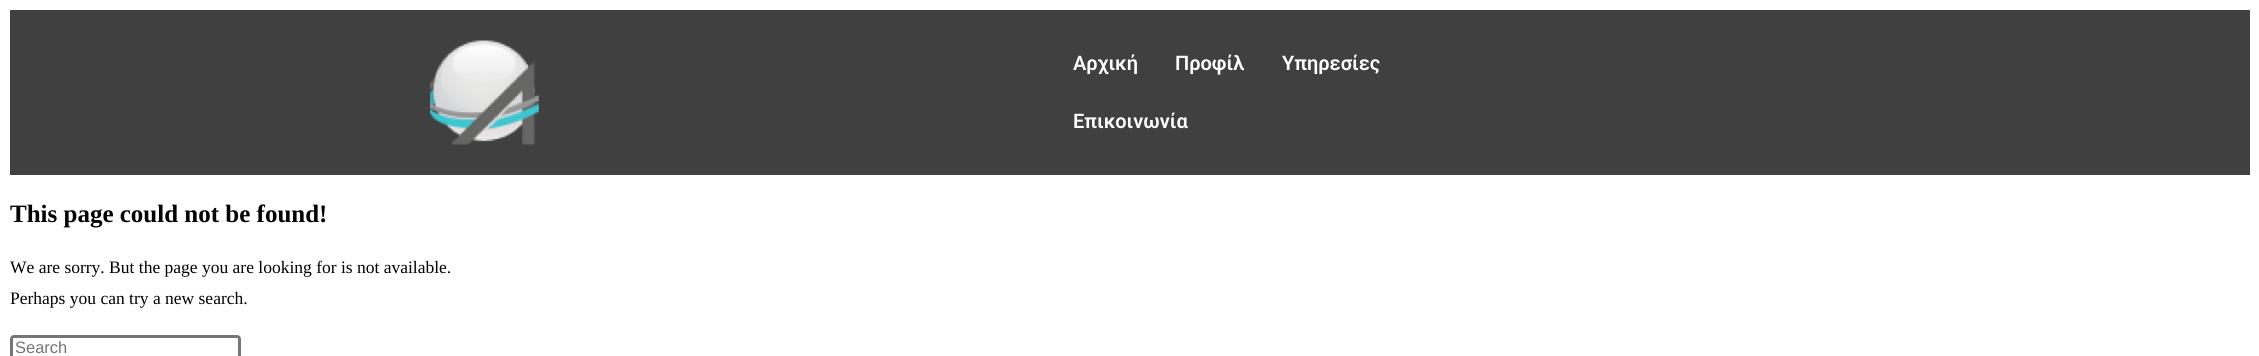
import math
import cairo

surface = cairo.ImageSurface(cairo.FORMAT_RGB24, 2259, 356)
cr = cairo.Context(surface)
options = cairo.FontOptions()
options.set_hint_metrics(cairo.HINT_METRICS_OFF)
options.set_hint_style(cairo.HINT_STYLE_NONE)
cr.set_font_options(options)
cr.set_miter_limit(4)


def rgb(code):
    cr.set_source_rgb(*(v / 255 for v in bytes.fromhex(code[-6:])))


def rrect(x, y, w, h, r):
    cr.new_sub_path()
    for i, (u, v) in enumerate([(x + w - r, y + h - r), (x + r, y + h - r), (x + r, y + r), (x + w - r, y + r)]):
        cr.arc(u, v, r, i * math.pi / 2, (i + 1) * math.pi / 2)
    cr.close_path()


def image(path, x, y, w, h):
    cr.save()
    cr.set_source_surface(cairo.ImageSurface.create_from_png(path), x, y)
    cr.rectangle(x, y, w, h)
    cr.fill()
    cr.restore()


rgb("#ffffff")
cr.paint()
rgb("#404040")
cr.rectangle(10, 10, 2240, 165)
cr.fill()
image("img/1.png", 430, 40, 109, 105)
rrect(11.5, 336.5, 228, 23, 2.5)
rgb("#767676")
cr.set_line_width(3)
cr.stroke()
cr.select_font_face("Roboto SemiBold")
cr.set_font_size(20)
rgb("#ffffff")
for x, y, s in [
    (1073, 70, "Αρχική"),
    (1175, 70, "Προφίλ"),
    (1282, 70, "Υπηρεσίες"),
    (1073, 128, "Επικοινωνία"),
]:
    cr.move_to(x, y)
    cr.show_text(s)
cr.select_font_face("Liberation Serif", cairo.FONT_SLANT_NORMAL, cairo.FONT_WEIGHT_BOLD)
cr.set_font_size(25)
rgb("#000000")
cr.move_to(10, 222)
cr.show_text("This page could not be found!")
cr.select_font_face("Liberation Serif")
cr.set_font_size(17.5)
cr.move_to(10, 273)
cr.show_text("We are sorry. But the page you are looking for is not available.")
cr.move_to(10, 304)
cr.show_text("Perhaps you can try a new search.")
cr.select_font_face("Liberation Sans")
cr.set_font_size(16.5)
rgb("#757575")
cr.move_to(15, 353)
cr.show_text("Search")
surface.write_to_png("page.png")
